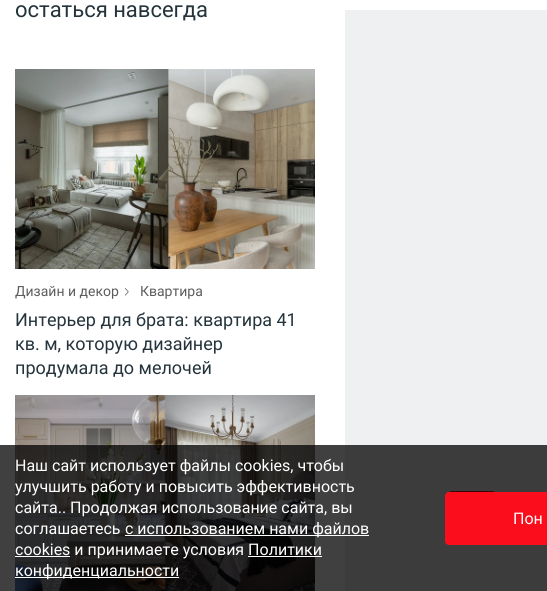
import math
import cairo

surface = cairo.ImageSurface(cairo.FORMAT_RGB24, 547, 591)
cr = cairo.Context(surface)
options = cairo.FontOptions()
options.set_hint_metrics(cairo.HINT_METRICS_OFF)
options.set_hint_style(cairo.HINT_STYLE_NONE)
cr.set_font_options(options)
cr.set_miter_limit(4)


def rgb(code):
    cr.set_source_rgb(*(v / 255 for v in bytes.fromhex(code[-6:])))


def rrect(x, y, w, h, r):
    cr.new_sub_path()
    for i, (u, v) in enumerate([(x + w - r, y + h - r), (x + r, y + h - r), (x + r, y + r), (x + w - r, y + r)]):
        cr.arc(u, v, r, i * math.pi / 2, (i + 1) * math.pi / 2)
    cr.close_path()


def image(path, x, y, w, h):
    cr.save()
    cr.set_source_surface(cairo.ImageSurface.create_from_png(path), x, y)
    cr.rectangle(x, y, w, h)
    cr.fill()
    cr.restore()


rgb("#ffffff")
cr.paint()
image("img/1.png", 15, 69, 300, 200)
image("img/2.png", 124, 288, 5, 8)
image("img/3.png", 15, 395, 300, 196)
rgb("#eff0f2")
cr.rectangle(345, 10, 202, 581)
cr.fill()
rgb("#fc0d1b")
rrect(447, 491, 50, 50, 5)
cr.fill()
cr.set_source_rgba(0, 0, 0, 0.75)
cr.rectangle(0, 445, 547, 146)
cr.fill()
rgb("#ffffff")
cr.rectangle(125, 535, 244, 1)
cr.rectangle(15, 556, 55, 1)
cr.rectangle(248, 556, 74, 1)
cr.rectangle(15, 577, 164, 1)
cr.fill()
rgb("#fc0d1b")
rrect(445, 492, 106, 53, 4)
cr.fill()
cr.select_font_face("Roboto")
cr.set_font_size(22)
rgb("#25343c")
cr.move_to(15, 17)
cr.show_text("остаться навсегда")
cr.set_font_size(14)
rgb("#5d5d5d")
cr.move_to(15, 296)
cr.show_text("Дизайн и декор")
cr.move_to(140, 296)
cr.show_text("Квартира")
cr.set_font_size(18)
rgb("#25343c")
for x, y, s in [
    (15, 326, "Интерьер для брата: квартира 41"),
    (15, 350, "кв. м, которую дизайнер"),
    (15, 374, "продумала до мелочей"),
]:
    cr.move_to(x, y)
    cr.show_text(s)
cr.set_font_size(16)
rgb("#ffffff")
for x, y, s in [
    (15, 471, "Наш сайт использует файлы cookies, чтобы"),
    (15, 492, "улучшить работу и повысить эффективность"),
    (15, 513, "сайта.. Продолжая использование сайта, вы"),
    (15, 534, "соглашаетесь"),
    (125, 534, "c использованием нами файлов"),
    (15, 555, "cookies и принимаете условия Политики"),
    (15, 576, "конфиденциальности"),
    (513, 524, "Пон"),
]:
    cr.move_to(x, y)
    cr.show_text(s)
surface.write_to_png("page.png")
